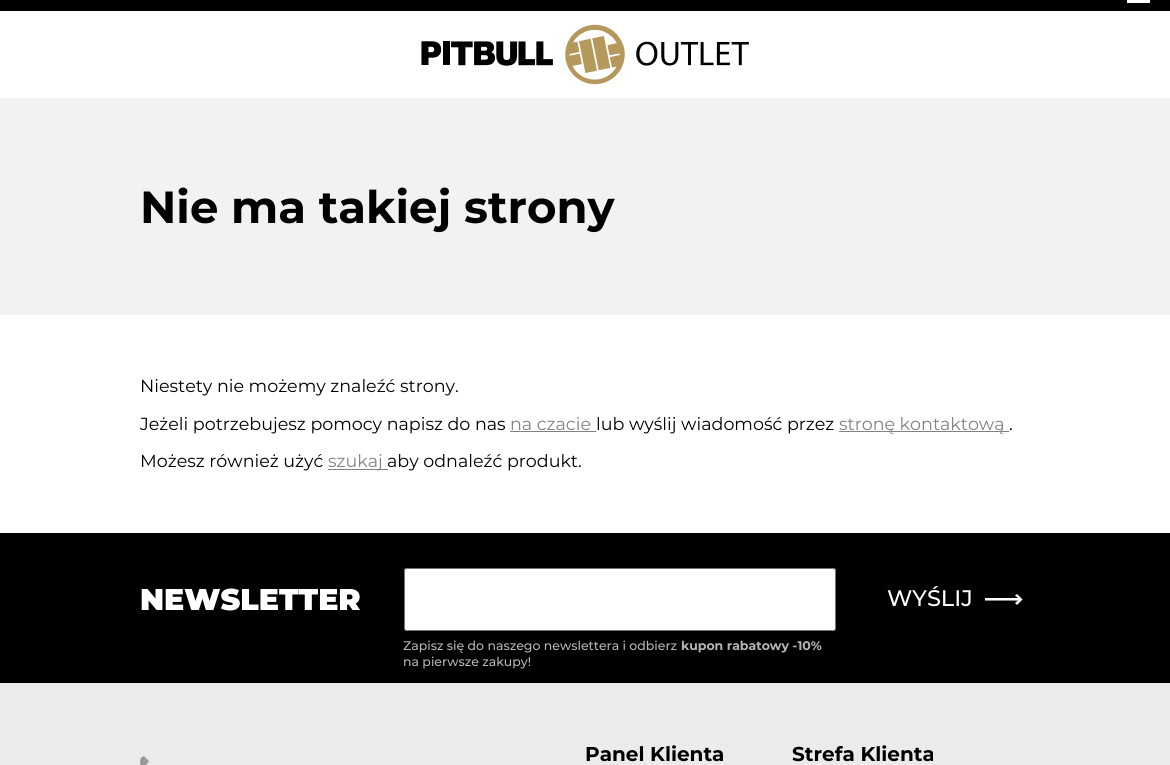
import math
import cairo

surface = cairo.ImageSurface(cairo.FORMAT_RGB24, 1170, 765)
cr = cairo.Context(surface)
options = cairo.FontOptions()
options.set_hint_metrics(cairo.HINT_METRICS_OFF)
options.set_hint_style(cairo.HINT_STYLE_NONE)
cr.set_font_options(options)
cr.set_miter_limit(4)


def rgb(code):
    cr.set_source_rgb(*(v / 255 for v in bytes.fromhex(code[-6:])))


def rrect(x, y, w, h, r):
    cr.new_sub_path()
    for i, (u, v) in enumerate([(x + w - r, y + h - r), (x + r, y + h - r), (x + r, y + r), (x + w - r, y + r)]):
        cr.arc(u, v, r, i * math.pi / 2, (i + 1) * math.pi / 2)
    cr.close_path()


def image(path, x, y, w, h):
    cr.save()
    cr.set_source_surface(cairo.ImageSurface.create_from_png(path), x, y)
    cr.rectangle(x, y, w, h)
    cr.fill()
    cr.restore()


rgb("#ffffff")
cr.paint()
rgb("#000000")
cr.rectangle(0, 0, 1170, 11)
cr.fill()
rgb("#ffffff")
cr.rectangle(1127, 0, 23, 3)
cr.fill()
image("img/1.png", 421, 24, 328, 61)
for x, y, w, h, color in [
    (0, 98, 1170, 217, "#f2f2f2"),
    (510, 431, 86, 1, "#828282"),
    (839, 431, 170, 1, "#828282"),
    (328, 469, 60, 1, "#828282"),
    (0, 683, 1170, 82, "#ebebeb"),
    (0, 533, 1170, 150, "#000000"),
]:
    rgb(color)
    cr.rectangle(x, y, w, h)
    cr.fill()
rgb("#ffffff")
cr.new_path()
cr.move_to(1017, 594)
cr.line_to(1015, 595.5)
cr.line_to(1018, 598)
cr.line_to(985, 598)
cr.line_to(985, 600.5)
cr.line_to(1018, 600.5)
cr.line_to(1015, 603)
cr.line_to(1017, 605)
cr.line_to(1022.5, 599.5)
cr.close_path()
cr.fill()
rrect(404.5, 568.5, 431, 62, 2)
cr.fill_preserve()
rgb("#767676")
cr.set_line_width(1)
cr.stroke()
image("img/2.png", 140, 756, 9, 9)
cr.select_font_face("Montserrat", cairo.FONT_SLANT_NORMAL, cairo.FONT_WEIGHT_BOLD)
cr.set_font_size(45)
rgb("#000000")
cr.move_to(140, 223)
cr.show_text("Nie ma takiej strony")
cr.select_font_face("Montserrat")
cr.set_font_size(17.5)
cr.move_to(140, 392)
cr.show_text("Niestety nie możemy znaleźć strony.")
cr.move_to(140, 430)
cr.show_text("Jeżeli potrzebujesz pomocy napisz do nas")
rgb("#828282")
cr.move_to(510, 430)
cr.show_text("na czacie")
rgb("#000000")
cr.move_to(596, 430)
cr.show_text("lub wyślij wiadomość przez")
rgb("#828282")
cr.move_to(839, 430)
cr.show_text("stronę kontaktową")
rgb("#000000")
cr.move_to(1009, 430)
cr.show_text(".")
cr.move_to(140, 467)
cr.show_text("Możesz również użyć")
rgb("#828282")
cr.move_to(328, 467)
cr.show_text("szukaj")
rgb("#000000")
cr.move_to(387, 467)
cr.show_text("aby odnaleźć produkt.")
cr.select_font_face("Montserrat Black")
cr.set_font_size(30)
rgb("#ffffff")
cr.move_to(140, 610)
cr.show_text("NEWSLETTER")
cr.select_font_face("Montserrat Medium")
cr.set_font_size(22.5)
cr.move_to(887, 606)
cr.show_text("WYŚLIJ")
cr.set_font_size(12.5)
rgb("#b5b5b5")
cr.move_to(403, 650)
cr.show_text("Zapisz się do naszego newslettera i odbierz")
cr.select_font_face("Montserrat", cairo.FONT_SLANT_NORMAL, cairo.FONT_WEIGHT_BOLD)
cr.move_to(681, 650)
cr.show_text("kupon rabatowy -10%")
cr.select_font_face("Montserrat Medium")
cr.move_to(403, 666)
cr.show_text("na pierwsze zakupy!")
cr.select_font_face("Montserrat", cairo.FONT_SLANT_NORMAL, cairo.FONT_WEIGHT_BOLD)
cr.set_font_size(20)
rgb("#000000")
cr.move_to(585, 761)
cr.show_text("Panel Klienta")
cr.move_to(792, 761)
cr.show_text("Strefa Klienta")
surface.write_to_png("page.png")
